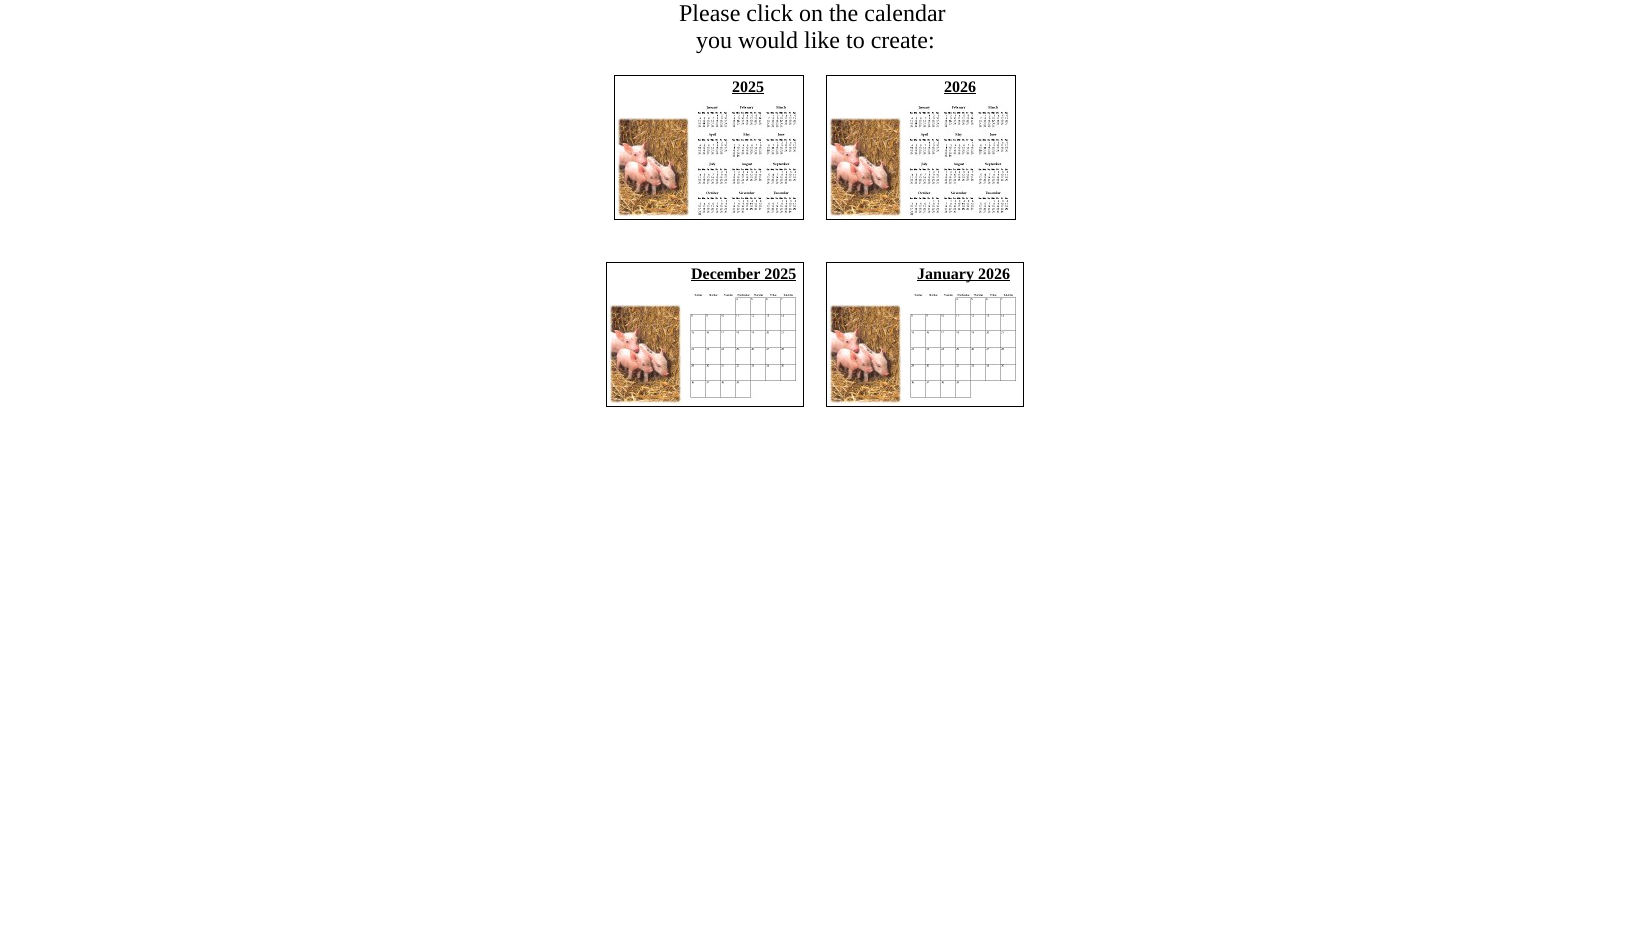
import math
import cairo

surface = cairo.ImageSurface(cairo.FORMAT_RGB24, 1630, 942)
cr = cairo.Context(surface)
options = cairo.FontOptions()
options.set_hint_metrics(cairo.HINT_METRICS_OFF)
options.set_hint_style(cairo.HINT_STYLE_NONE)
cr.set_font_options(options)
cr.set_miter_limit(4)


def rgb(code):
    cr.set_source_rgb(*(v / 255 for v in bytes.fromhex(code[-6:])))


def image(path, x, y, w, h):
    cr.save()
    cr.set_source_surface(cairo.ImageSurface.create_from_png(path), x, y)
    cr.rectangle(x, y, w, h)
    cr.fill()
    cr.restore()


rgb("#ffffff")
cr.paint()
for x, y, w, h, color in [
    (614, 75, 190, 1, "#000000"),
    (803, 75, 1, 145, "#000000"),
    (614, 219, 190, 1, "#000000"),
    (614, 75, 1, 145, "#000000"),
    (732, 93, 32, 1, "#000000"),
]:
    rgb(color)
    cr.rectangle(x, y, w, h)
    cr.fill()
image("img/1.png", 694, 102, 104, 115)
image("img/2.png", 617, 117, 73, 100)
for x, y, w, h, color in [
    (826, 75, 190, 1, "#000000"),
    (1015, 75, 1, 145, "#000000"),
    (826, 219, 190, 1, "#000000"),
    (826, 75, 1, 145, "#000000"),
    (944, 93, 32, 1, "#000000"),
]:
    rgb(color)
    cr.rectangle(x, y, w, h)
    cr.fill()
image("img/1.png", 906, 102, 104, 115)
image("img/2.png", 829, 117, 73, 100)
for x, y, w, h, color in [
    (606, 262, 198, 1, "#000000"),
    (803, 262, 1, 145, "#000000"),
    (606, 406, 198, 1, "#000000"),
    (606, 262, 1, 145, "#000000"),
    (691, 280, 105, 1, "#000000"),
]:
    rgb(color)
    cr.rectangle(x, y, w, h)
    cr.fill()
image("img/3.png", 686, 289, 112, 112)
image("img/2.png", 609, 304, 73, 100)
for x, y, w, h, color in [
    (826, 262, 198, 1, "#000000"),
    (1023, 262, 1, 145, "#000000"),
    (826, 406, 198, 1, "#000000"),
    (826, 262, 1, 145, "#000000"),
    (917, 280, 93, 1, "#000000"),
]:
    rgb(color)
    cr.rectangle(x, y, w, h)
    cr.fill()
image("img/3.png", 906, 289, 112, 112)
image("img/2.png", 829, 304, 73, 100)
cr.select_font_face("Liberation Serif")
cr.set_font_size(24)
cr.move_to(679, 21)
cr.show_text("Please click on the calendar")
cr.move_to(696, 48)
cr.show_text("you would like to create:")
cr.select_font_face("Liberation Serif", cairo.FONT_SLANT_NORMAL, cairo.FONT_WEIGHT_BOLD)
cr.set_font_size(16)
for x, y, s in [
    (732, 92, "2025"),
    (944, 92, "2026"),
    (691, 279, "December 2025"),
    (917, 279, "January 2026"),
]:
    cr.move_to(x, y)
    cr.show_text(s)
surface.write_to_png("page.png")
